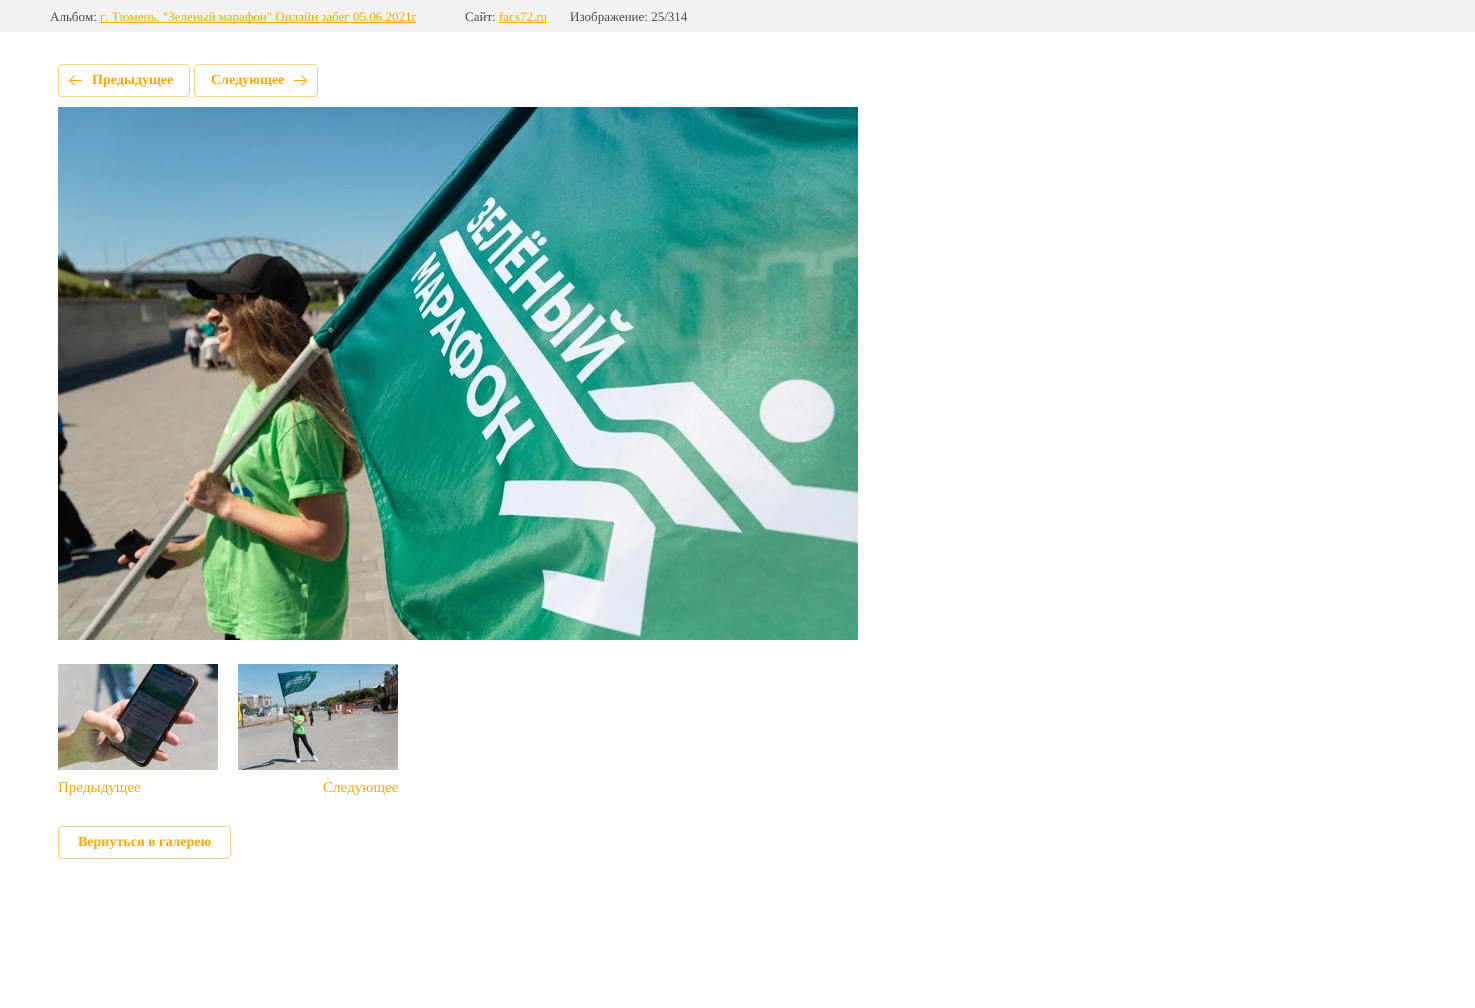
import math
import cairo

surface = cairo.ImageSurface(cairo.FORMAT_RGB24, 1475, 1008)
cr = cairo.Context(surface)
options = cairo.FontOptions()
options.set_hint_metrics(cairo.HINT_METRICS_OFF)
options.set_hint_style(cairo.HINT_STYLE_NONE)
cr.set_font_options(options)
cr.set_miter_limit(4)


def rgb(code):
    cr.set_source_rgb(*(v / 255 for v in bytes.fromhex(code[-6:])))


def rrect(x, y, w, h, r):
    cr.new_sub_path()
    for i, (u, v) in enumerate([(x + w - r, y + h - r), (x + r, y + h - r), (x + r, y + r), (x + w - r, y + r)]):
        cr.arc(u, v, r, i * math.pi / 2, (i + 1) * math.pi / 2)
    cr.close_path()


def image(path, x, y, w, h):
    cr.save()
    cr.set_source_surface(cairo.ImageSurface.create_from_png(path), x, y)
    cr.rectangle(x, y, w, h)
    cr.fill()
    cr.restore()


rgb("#ffffff")
cr.paint()
for x, y, w, h, color in [
    (0, 0, 1475, 32, "#f3f3f3"),
    (100, 22, 316, 1, "#ffa601"),
    (499, 22, 48, 1, "#ffa601"),
]:
    rgb(color)
    cr.rectangle(x, y, w, h)
    cr.fill()
rrect(58.5, 64.5, 131, 32, 3.5)
rgb("#ffd380")
cr.set_line_width(1)
cr.stroke()
image("img/1.png", 69, 75, 13, 11)
rrect(194.5, 64.5, 123, 32, 3.5)
cr.stroke()
image("img/2.png", 294, 75, 13, 11)
image("img/3.png", 58, 107, 800, 533)
image("img/4.png", 58, 664, 160, 106)
image("img/5.png", 238, 664, 160, 106)
rrect(58.5, 826.5, 172, 32, 3.5)
cr.stroke()
cr.select_font_face("Liberation Serif")
cr.set_font_size(13)
rgb("#484848")
cr.move_to(50, 21)
cr.show_text("Альбом:")
rgb("#ffa601")
cr.move_to(100, 21)
cr.show_text("г. Тюмень, \"Зеленый марафон\" Онлайн забег 05.06.2021г")
rgb("#484848")
cr.move_to(465, 21)
cr.show_text("Сайт:")
rgb("#ffa601")
cr.move_to(499, 21)
cr.show_text("facs72.ru")
rgb("#484848")
cr.move_to(570, 21)
cr.show_text("Изображение: 25/314")
cr.select_font_face("Liberation Serif", cairo.FONT_SLANT_NORMAL, cairo.FONT_WEIGHT_BOLD)
cr.set_font_size(14)
rgb("#ffa601")
cr.move_to(92, 84)
cr.show_text("Предыдущее")
cr.move_to(211, 84)
cr.show_text("Следующее")
cr.select_font_face("Liberation Serif")
cr.set_font_size(15)
cr.move_to(58, 792)
cr.show_text("Предыдущее")
cr.move_to(323, 792)
cr.show_text("Следующее")
cr.select_font_face("Liberation Serif", cairo.FONT_SLANT_NORMAL, cairo.FONT_WEIGHT_BOLD)
cr.set_font_size(14)
cr.move_to(78, 846)
cr.show_text("Вернуться в галерею")
surface.write_to_png("page.png")
